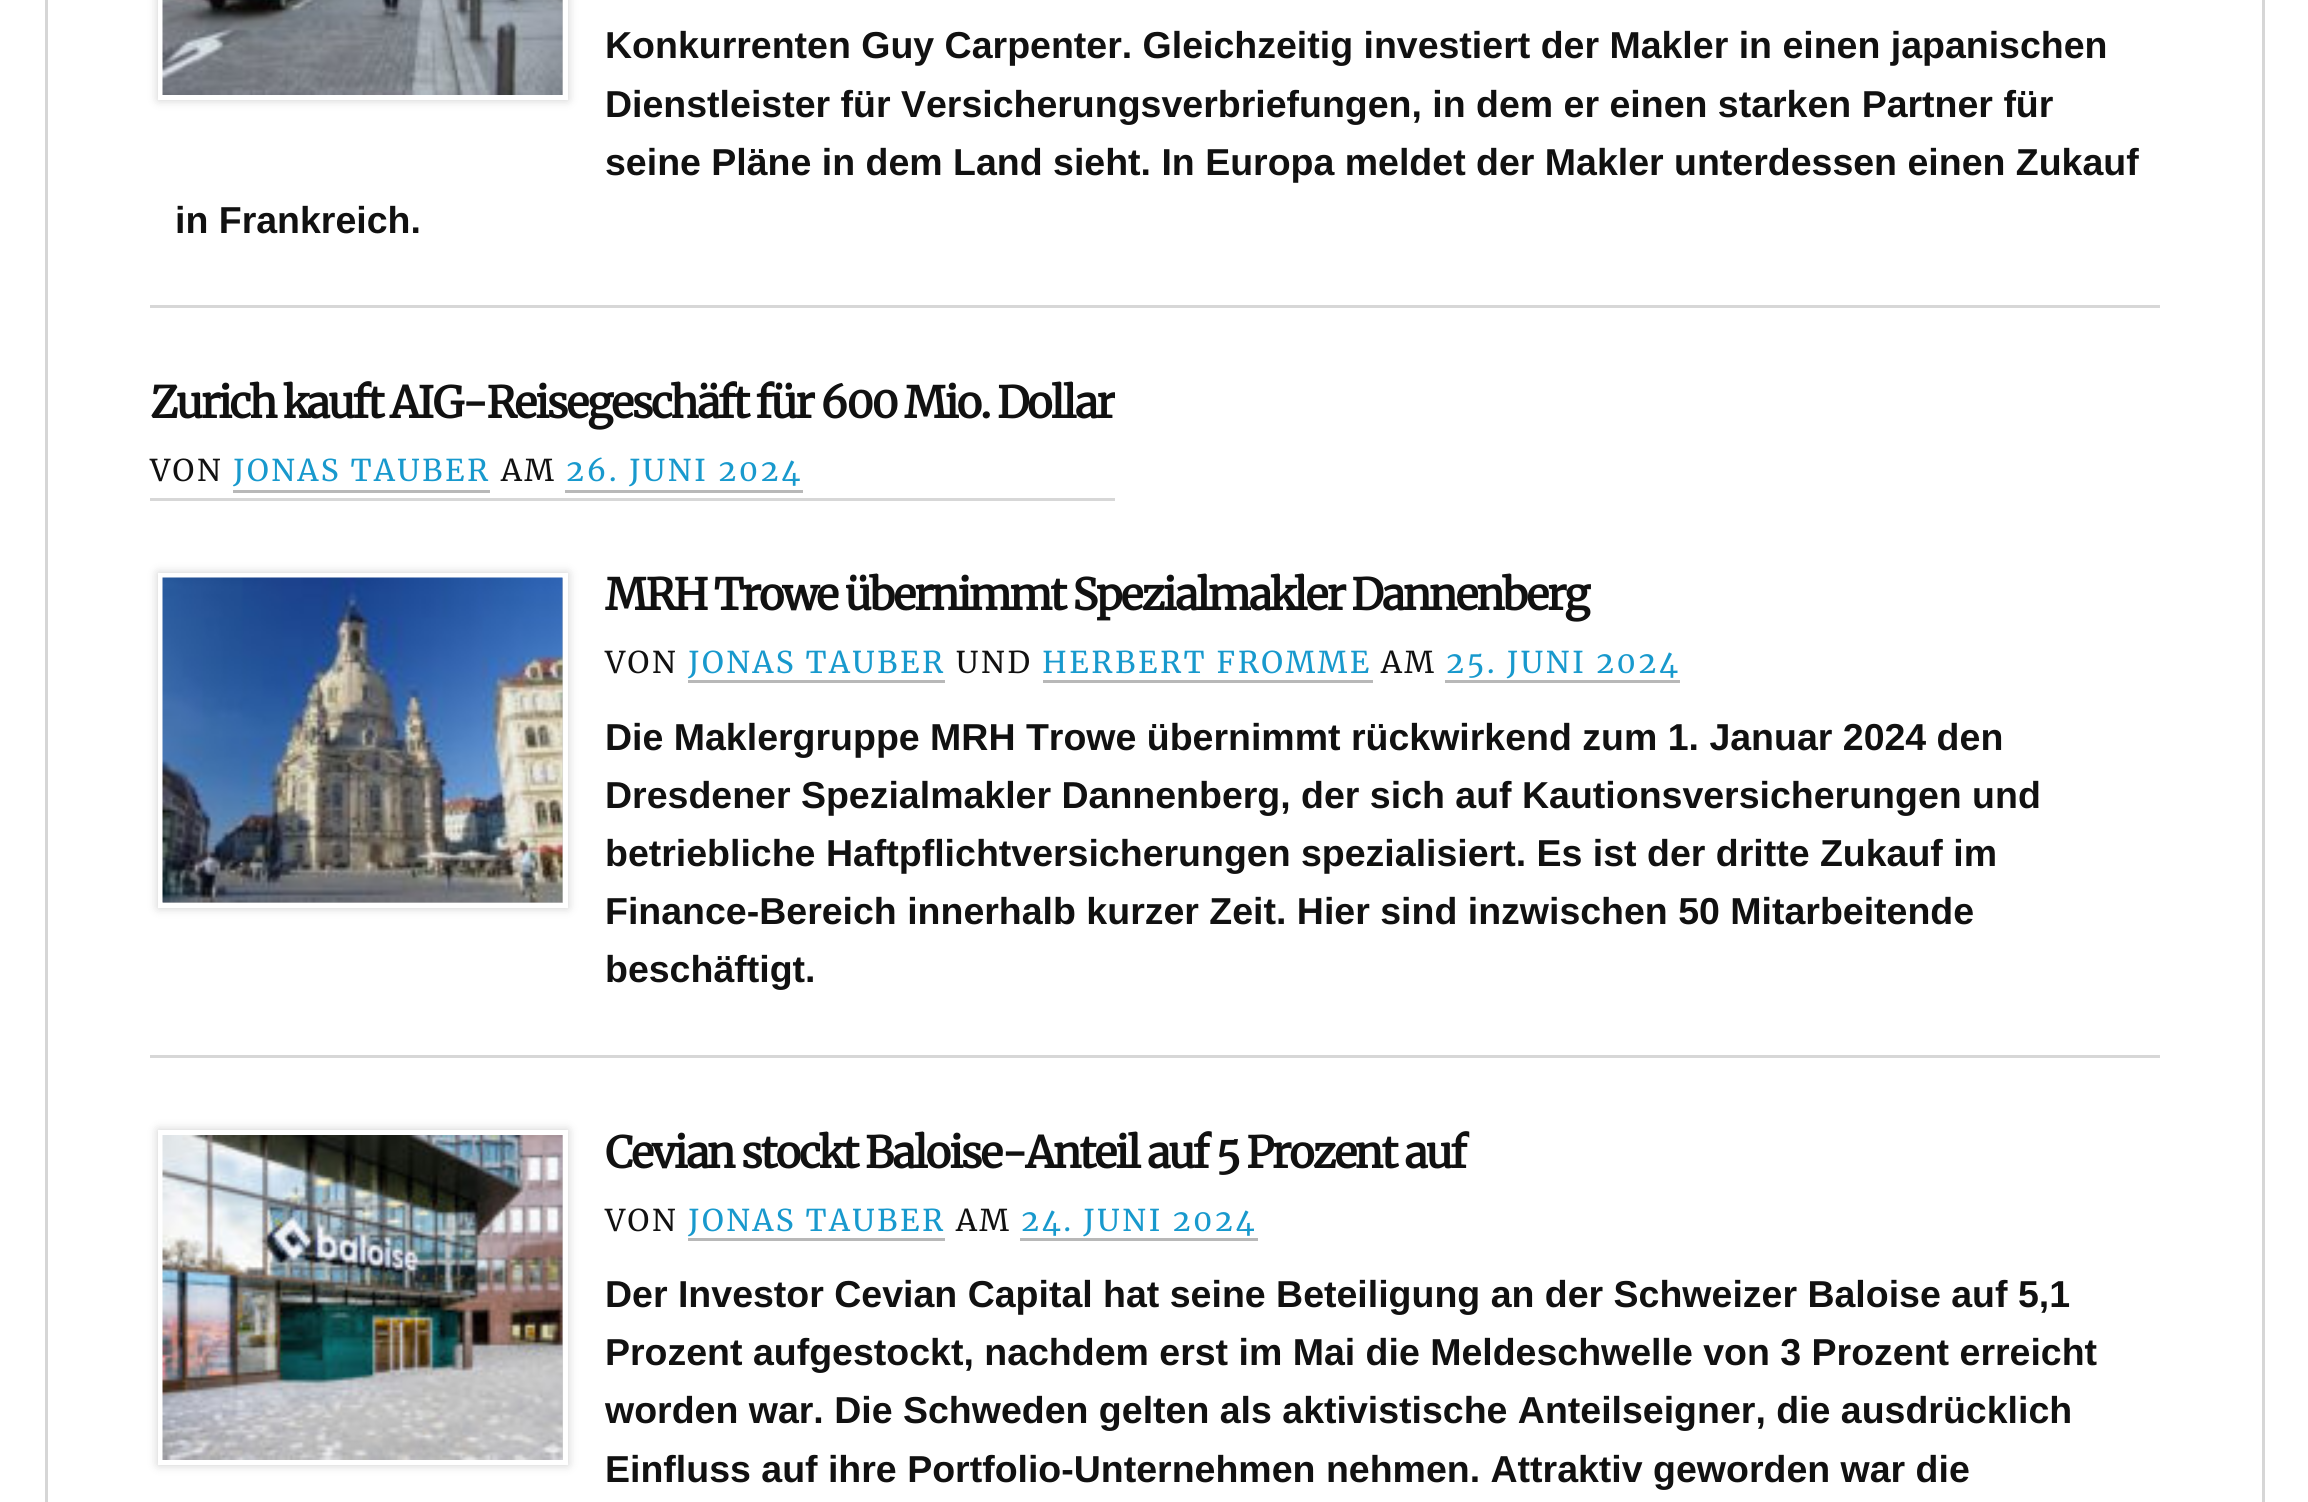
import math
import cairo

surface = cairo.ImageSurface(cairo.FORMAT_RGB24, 2308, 1502)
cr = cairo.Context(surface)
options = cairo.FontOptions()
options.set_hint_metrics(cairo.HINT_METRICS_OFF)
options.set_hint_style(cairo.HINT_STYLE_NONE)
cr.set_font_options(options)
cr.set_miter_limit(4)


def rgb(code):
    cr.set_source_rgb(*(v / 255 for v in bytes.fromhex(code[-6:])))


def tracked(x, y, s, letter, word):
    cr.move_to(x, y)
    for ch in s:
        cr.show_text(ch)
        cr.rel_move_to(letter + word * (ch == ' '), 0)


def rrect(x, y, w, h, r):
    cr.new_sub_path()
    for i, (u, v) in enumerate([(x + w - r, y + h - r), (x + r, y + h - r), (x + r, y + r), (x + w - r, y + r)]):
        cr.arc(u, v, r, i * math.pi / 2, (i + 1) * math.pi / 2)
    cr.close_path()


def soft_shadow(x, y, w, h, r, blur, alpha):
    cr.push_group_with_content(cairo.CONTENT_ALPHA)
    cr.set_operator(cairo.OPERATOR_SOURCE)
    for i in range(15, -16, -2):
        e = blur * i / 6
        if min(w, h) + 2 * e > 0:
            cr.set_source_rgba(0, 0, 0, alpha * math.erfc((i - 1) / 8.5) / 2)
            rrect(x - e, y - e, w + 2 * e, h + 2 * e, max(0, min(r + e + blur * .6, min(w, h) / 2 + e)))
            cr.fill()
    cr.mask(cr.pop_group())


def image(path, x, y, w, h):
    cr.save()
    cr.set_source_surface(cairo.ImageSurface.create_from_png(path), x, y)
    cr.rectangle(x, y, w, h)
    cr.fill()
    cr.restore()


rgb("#ffffff")
cr.paint()
cr.rectangle(46.5, -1.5, 2217, 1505)
rgb("#d6d6d6")
cr.set_line_width(3)
cr.stroke()
rgb("#d7d7d7")
cr.rectangle(150, 305, 2010, 3)
cr.fill()
rgb("#000000")
soft_shadow(158, -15, 410, 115, 0, 5, 0.2)
cr.rectangle(160.5, -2.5, 405, 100)
rgb("#ffffff")
cr.set_line_width(5)
cr.stroke()
image("img/1.png", 162, 0, 401, 95)
for x, y, w, h, color in [
    (150, 498, 965, 3, "#d7d7d7"),
    (233, 490, 257, 3, "#b8b8b8"),
    (565, 490, 238, 3, "#b8b8b8"),
    (150, 1055, 2010, 3, "#d7d7d7"),
]:
    rgb(color)
    cr.rectangle(x, y, w, h)
    cr.fill()
rgb("#000000")
soft_shadow(158, 573, 410, 335, 0, 5, 0.2)
cr.rectangle(160.5, 575.5, 405, 330)
rgb("#ffffff")
cr.stroke()
image("img/2.png", 162, 577, 401, 326)
for x, y, w, h, color in [
    (688, 680, 257, 3, "#b8b8b8"),
    (1043, 680, 330, 3, "#b8b8b8"),
    (1445, 680, 235, 3, "#b8b8b8"),
]:
    rgb(color)
    cr.rectangle(x, y, w, h)
    cr.fill()
rgb("#000000")
soft_shadow(158, 1130, 410, 335, 0, 5, 0.2)
cr.rectangle(160.5, 1132.5, 405, 330)
rgb("#ffffff")
cr.stroke()
image("img/3.png", 162, 1135, 401, 325)
rgb("#b8b8b8")
cr.rectangle(688, 1238, 257, 3)
cr.fill()
cr.rectangle(1020, 1238, 238, 3)
cr.fill()
cr.select_font_face("Liberation Sans", cairo.FONT_SLANT_NORMAL, cairo.FONT_WEIGHT_BOLD)
cr.set_font_size(37.5)
rgb("#111111")
for x, y, s in [
    (605, 58, "Konkurrenten Guy Carpenter. Gleichzeitig investiert der Makler in einen japanischen"),
    (605, 117, "Dienstleister für Versicherungsverbriefungen, in dem er einen starken Partner für"),
    (605, 175, "seine Pläne in dem Land sieht. In Europa meldet der Makler unterdessen einen Zukauf"),
    (175, 233, "in Frankreich."),
]:
    cr.move_to(x, y)
    cr.show_text(s)
cr.save()
cr.rectangle(150, 353, 965, 145)
cr.clip()
cr.select_font_face("Merriweather", cairo.FONT_SLANT_NORMAL, cairo.FONT_WEIGHT_BOLD)
cr.set_font_size(43.1)
tracked(150, 418, "Zurich kauft AIG-Reisegeschäft für 600 Mio. Dollar", -2.5, 0)
cr.restore()
cr.select_font_face("Merriweather")
cr.set_font_size(30)
tracked(150, 481, "VON", 2.5, 0)
rgb("#1899cd")
tracked(233, 481, "JONAS TAUBER", 2.5, 0)
rgb("#111111")
tracked(501, 481, "AM", 2.5, 0)
rgb("#1899cd")
tracked(566, 481, "26. JUNI 2024", 2.5, 0)
cr.select_font_face("Merriweather", cairo.FONT_SLANT_NORMAL, cairo.FONT_WEIGHT_BOLD)
cr.set_font_size(43.1)
rgb("#111111")
tracked(605, 610, "MRH Trowe übernimmt Spezialmakler Dannenberg", -2.5, 0)
cr.select_font_face("Merriweather")
cr.set_font_size(30)
tracked(605, 673, "VON", 2.5, 0)
rgb("#1899cd")
tracked(688, 673, "JONAS TAUBER", 2.5, 0)
rgb("#111111")
tracked(956, 673, "UND", 2.5, 0)
rgb("#1899cd")
tracked(1042, 673, "HERBERT FROMME", 2.5, 0)
rgb("#111111")
tracked(1381, 673, "AM", 2.5, 0)
rgb("#1899cd")
tracked(1446, 673, "25. JUNI 2024", 2.5, 0)
cr.select_font_face("Liberation Sans", cairo.FONT_SLANT_NORMAL, cairo.FONT_WEIGHT_BOLD)
cr.set_font_size(37.5)
rgb("#111111")
for x, y, s in [
    (605, 750, "Die Maklergruppe MRH Trowe übernimmt rückwirkend zum 1. Januar 2024 den"),
    (605, 808, "Dresdener Spezialmakler Dannenberg, der sich auf Kautionsversicherungen und"),
    (605, 866, "betriebliche Haftpflichtversicherungen spezialisiert. Es ist der dritte Zukauf im"),
    (605, 924, "Finance-Bereich innerhalb kurzer Zeit. Hier sind inzwischen 50 Mitarbeitende"),
    (605, 982, "beschäftigt."),
]:
    cr.move_to(x, y)
    cr.show_text(s)
cr.select_font_face("Merriweather", cairo.FONT_SLANT_NORMAL, cairo.FONT_WEIGHT_BOLD)
cr.set_font_size(43.1)
tracked(605, 1168, "Cevian stockt Baloise-Anteil auf 5 Prozent auf", -2.5, 0)
cr.select_font_face("Merriweather")
cr.set_font_size(30)
tracked(605, 1231, "VON", 2.5, 0)
rgb("#1899cd")
tracked(688, 1231, "JONAS TAUBER", 2.5, 0)
rgb("#111111")
tracked(956, 1231, "AM", 2.5, 0)
rgb("#1899cd")
tracked(1021, 1231, "24. JUNI 2024", 2.5, 0)
cr.select_font_face("Liberation Sans", cairo.FONT_SLANT_NORMAL, cairo.FONT_WEIGHT_BOLD)
cr.set_font_size(37.5)
rgb("#111111")
for x, y, s in [
    (605, 1307, "Der Investor Cevian Capital hat seine Beteiligung an der Schweizer Baloise auf 5,1"),
    (605, 1365, "Prozent aufgestockt, nachdem erst im Mai die Meldeschwelle von 3 Prozent erreicht"),
    (605, 1423, "worden war. Die Schweden gelten als aktivistische Anteilseigner, die ausdrücklich"),
    (605, 1482, "Einfluss auf ihre Portfolio-Unternehmen nehmen. Attraktiv geworden war die"),
]:
    cr.move_to(x, y)
    cr.show_text(s)
surface.write_to_png("page.png")
